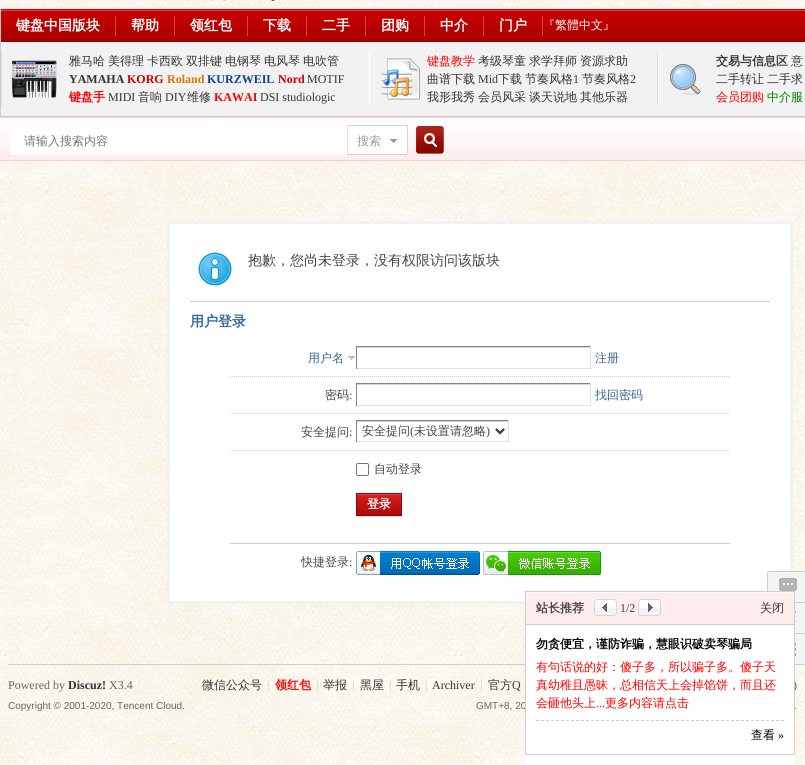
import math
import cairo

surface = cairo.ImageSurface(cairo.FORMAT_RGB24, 805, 765)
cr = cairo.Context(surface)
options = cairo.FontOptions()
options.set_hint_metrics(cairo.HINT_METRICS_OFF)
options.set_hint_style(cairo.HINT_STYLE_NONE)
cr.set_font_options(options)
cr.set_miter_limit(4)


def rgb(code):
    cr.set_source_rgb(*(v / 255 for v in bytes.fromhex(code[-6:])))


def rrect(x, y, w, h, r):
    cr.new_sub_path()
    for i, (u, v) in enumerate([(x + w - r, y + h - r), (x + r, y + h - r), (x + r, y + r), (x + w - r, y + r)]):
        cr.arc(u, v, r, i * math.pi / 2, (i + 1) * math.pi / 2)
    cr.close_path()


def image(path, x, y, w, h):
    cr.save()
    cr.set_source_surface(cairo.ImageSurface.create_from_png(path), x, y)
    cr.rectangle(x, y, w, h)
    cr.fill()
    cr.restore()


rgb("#ffffff")
cr.paint()
image("img/1.png", 0, 0, 805, 765)
image("img/2.png", 3, 0, 802, 2)
image("img/3.png", 187, 0, 88, 1)
image("img/4.png", 1, 9, 804, 33)
for x, y, w, h, color in [
    (115, 16, 1, 20, "#d94040"),
    (174, 16, 1, 20, "#d94040"),
    (247, 16, 1, 20, "#d94040"),
    (306, 16, 1, 20, "#d94040"),
    (365, 16, 1, 20, "#d94040"),
    (424, 16, 1, 20, "#d94040"),
    (483, 16, 1, 20, "#d94040"),
    (542, 16, 1, 20, "#d94040"),
    (1, 42, 804, 74, "#f2f2f2"),
    (0, 116, 805, 1, "#cdcdcd"),
    (0, 9, 1, 108, "#cdcdcd"),
]:
    rgb(color)
    cr.rectangle(x, y, w, h)
    cr.fill()
image("img/5.png", 12, 60, 45, 38)
rgb("#dddddd")
cr.rectangle(1, 52, 1, 54)
cr.fill()
image("img/6.png", 381, 58, 39, 42)
cr.rectangle(657, 52, 1, 54)
cr.fill()
rgb("#ffffff")
cr.rectangle(369, 52, 1, 54)
cr.fill()
image("img/7.png", 670, 64, 31, 31)
cr.rectangle(658, 52, 1, 54)
cr.fill()
image("img/8.png", 0, 118, 805, 42)
for x, y, w, h, color in [
    (0, 117, 805, 1, "#ffcccc"),
    (0, 160, 805, 1, "#ffcccc"),
    (10, 126, 337, 29, "#ffffff"),
]:
    rgb(color)
    cr.rectangle(x, y, w, h)
    cr.fill()
image("img/9.png", 416, 126, 28, 28)
image("img/10.png", 347, 125, 61, 30)
cr.rectangle(168.5, 222.5, 623, 380)
cr.fill_preserve()
rgb("#f2f2f2")
cr.set_line_width(3)
cr.stroke()
image("img/11.png", 198, 252, 34, 34)
rgb("#cdcdcd")
cr.rectangle(190, 301, 580, 1)
cr.fill()
cr.new_path()
cr.move_to(230, 376.5)
cr.line_to(730, 376.5)
cr.set_line_width(1)
cr.set_dash([1, 1])
cr.stroke()
image("img/12.png", 348, 356, 7, 4)
for x, y, w, h, color in [
    (356, 347, 235, 1, "#d4d4d4"),
    (356, 346, 235, 1, "#848484"),
    (590, 346, 1, 23, "#e0e0e0"),
    (356, 368, 235, 1, "#e0e0e0"),
    (356, 346, 1, 23, "#848484"),
]:
    rgb(color)
    cr.rectangle(x, y, w, h)
    cr.fill()
cr.new_path()
cr.move_to(230, 413.5)
cr.line_to(730, 413.5)
rgb("#cdcdcd")
cr.stroke()
for x, y, w, h, color in [
    (356, 384, 235, 1, "#d4d4d4"),
    (356, 383, 235, 1, "#848484"),
    (590, 383, 1, 23, "#e0e0e0"),
    (356, 405, 235, 1, "#e0e0e0"),
    (356, 383, 1, 23, "#848484"),
]:
    rgb(color)
    cr.rectangle(x, y, w, h)
    cr.fill()
cr.new_path()
cr.move_to(230, 450.5)
cr.line_to(730, 450.5)
rgb("#cdcdcd")
cr.stroke()
image("img/13.png", 357, 421, 151, 14)
for x, y, w, h, color in [
    (356, 420, 153, 1, "#848484"),
    (508, 420, 1, 22, "#e0e0e0"),
    (356, 441, 153, 1, "#e0e0e0"),
    (356, 420, 1, 22, "#848484"),
]:
    rgb(color)
    cr.rectangle(x, y, w, h)
    cr.fill()
cr.new_path()
cr.move_to(496, 429)
cr.line_to(500, 433)
cr.line_to(504, 429)
rgb("#444444")
cr.set_line_width(2)
cr.set_dash([])
cr.stroke()
rrect(356.5, 463.5, 12, 12, 1.5)
rgb("#767676")
cr.set_line_width(1)
cr.stroke()
rgb("#e5e5e5")
cr.rectangle(356, 516, 46, 1)
cr.fill()
image("img/14.png", 357, 494, 44, 21)
cr.rectangle(356.5, 493.5, 45, 22)
rgb("#990000")
cr.stroke()
rgb("#cdcdcd")
cr.rectangle(230, 543, 500, 1)
cr.fill()
image("img/15.png", 356, 551, 124, 24)
image("img/16.png", 483, 551, 118, 24)
rgb("#f4f4f4")
rrect(767, 571, 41, 94, 3)
cr.fill()
rgb("#cdcdcd")
cr.set_fill_rule(cairo.FILL_RULE_EVEN_ODD)
cr.new_path()
cr.move_to(770, 571)
cr.line_to(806, 571)
cr.curve_to(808, 571, 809, 572, 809, 574)
cr.line_to(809, 662)
cr.curve_to(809, 664, 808, 665, 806, 665)
cr.line_to(770, 665)
cr.curve_to(768, 665, 767, 664, 767, 662)
cr.line_to(767, 574)
cr.curve_to(767, 572, 768, 571, 770, 571)
cr.close_path()
cr.move_to(770, 571)
cr.line_to(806, 571)
cr.curve_to(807, 571, 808, 572, 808, 574)
cr.line_to(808, 662)
cr.curve_to(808, 663, 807, 664, 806, 664)
cr.line_to(770, 664)
cr.curve_to(769, 664, 768, 663, 768, 662)
cr.line_to(768, 574)
cr.curve_to(768, 572, 769, 571, 770, 571)
cr.close_path()
cr.fill()
image("img/19.png", 779, 578, 18, 14)
cr.rectangle(768, 571, 37, 1)
cr.fill()
image("img/20.png", 795, 611, 1, 12)
cr.rectangle(795, 602, 10, 1)
cr.fill()
image("img/21.png", 795, 643, 1, 14)
cr.rectangle(795, 633, 10, 1)
cr.fill()
cr.rectangle(8, 664, 517, 1)
cr.fill()
cr.select_font_face("WenQuanYi Zen Hei", cairo.FONT_SLANT_NORMAL, cairo.FONT_WEIGHT_BOLD)
cr.set_font_size(14)
rgb("#ffffff")
for x, y, s in [
    (16, 30, "键盘中国版块"),
    (131, 30, "帮助"),
    (190, 30, "领红包"),
    (263, 30, "下载"),
    (322, 30, "二手"),
    (381, 30, "团购"),
    (440, 30, "中介"),
    (499, 30, "门户"),
]:
    cr.move_to(x, y)
    cr.show_text(s)
cr.select_font_face("WenQuanYi Zen Hei Medium")
cr.set_font_size(12)
cr.move_to(543, 29)
cr.show_text("『繁體中文』")
rgb("#333333")
for x, y, s in [
    (69, 65, "雅马哈"),
    (108, 65, "美得理"),
    (147, 65, "卡西欧"),
    (186, 65, "双排键"),
    (225, 65, "电钢琴"),
    (264, 65, "电风琴"),
    (303, 65, "电吹管"),
]:
    cr.move_to(x, y)
    cr.show_text(s)
cr.select_font_face("Liberation Serif", cairo.FONT_SLANT_NORMAL, cairo.FONT_WEIGHT_BOLD)
cr.move_to(69, 83)
cr.show_text("YAMAHA")
rgb("#cb0000")
cr.move_to(127, 83)
cr.show_text("KORG")
rgb("#dd7700")
cr.move_to(167, 83)
cr.show_text("Roland")
rgb("#0e429f")
cr.move_to(207, 83)
cr.show_text("KURZWEIL")
rgb("#cb0000")
cr.move_to(278, 83)
cr.show_text("Nord")
cr.select_font_face("Liberation Serif")
rgb("#333333")
cr.move_to(307, 83)
cr.show_text("MOTIF")
cr.select_font_face("WenQuanYi Zen Hei", cairo.FONT_SLANT_NORMAL, cairo.FONT_WEIGHT_BOLD)
rgb("#ff0000")
cr.move_to(69, 101)
cr.show_text("键盘手")
cr.select_font_face("Liberation Serif")
rgb("#333333")
cr.move_to(108, 101)
cr.show_text("MIDI")
cr.select_font_face("WenQuanYi Zen Hei Medium")
cr.move_to(138, 101)
cr.show_text("音响")
cr.select_font_face("Liberation Serif")
cr.move_to(165, 101)
cr.show_text("DIY")
cr.select_font_face("WenQuanYi Zen Hei Medium")
cr.move_to(187, 101)
cr.show_text("维修")
cr.select_font_face("Liberation Serif", cairo.FONT_SLANT_NORMAL, cairo.FONT_WEIGHT_BOLD)
rgb("#ff0000")
cr.move_to(214, 101)
cr.show_text("KAWAI")
cr.select_font_face("Liberation Serif")
rgb("#333333")
cr.move_to(260, 101)
cr.show_text("DSI studiologic")
cr.select_font_face("WenQuanYi Zen Hei Medium")
rgb("#ff0000")
cr.move_to(427, 65)
cr.show_text("键盘教学")
rgb("#333333")
for x, y, s in [
    (478, 65, "考级琴童"),
    (529, 65, "求学拜师"),
    (580, 65, "资源求助"),
    (427, 83, "曲谱下载"),
]:
    cr.move_to(x, y)
    cr.show_text(s)
cr.select_font_face("Liberation Serif")
cr.move_to(478, 83)
cr.show_text("Mid")
cr.select_font_face("WenQuanYi Zen Hei Medium")
cr.move_to(498, 83)
cr.show_text("下载")
cr.move_to(525, 83)
cr.show_text("节奏风格")
cr.select_font_face("Liberation Serif")
cr.move_to(573, 83)
cr.show_text("1")
cr.select_font_face("WenQuanYi Zen Hei Medium")
cr.move_to(582, 83)
cr.show_text("节奏风格")
cr.select_font_face("Liberation Serif")
cr.move_to(630, 83)
cr.show_text("2")
cr.select_font_face("WenQuanYi Zen Hei Medium")
for x, y, s in [
    (427, 101, "我形我秀"),
    (478, 101, "会员风采"),
    (529, 101, "谈天说地"),
    (580, 101, "其他乐器"),
]:
    cr.move_to(x, y)
    cr.show_text(s)
cr.select_font_face("WenQuanYi Zen Hei", cairo.FONT_SLANT_NORMAL, cairo.FONT_WEIGHT_BOLD)
cr.move_to(716, 65)
cr.show_text("交易与信息区")
cr.select_font_face("WenQuanYi Zen Hei Medium")
for x, y, s in [
    (791, 65, "意"),
    (716, 83, "二手转让"),
    (767, 83, "二手求"),
]:
    cr.move_to(x, y)
    cr.show_text(s)
rgb("#ff0000")
cr.move_to(716, 101)
cr.show_text("会员团购")
rgb("#008000")
cr.move_to(767, 101)
cr.show_text("中介服")
rgb("#757575")
cr.move_to(24, 145)
cr.show_text("请输入搜索内容")
rgb("#999999")
cr.move_to(357, 145)
cr.show_text("搜索")
cr.set_font_size(14)
rgb("#444444")
cr.move_to(248, 265)
cr.show_text("抱歉，您尚未登录，没有权限访问该版块")
cr.select_font_face("WenQuanYi Zen Hei", cairo.FONT_SLANT_NORMAL, cairo.FONT_WEIGHT_BOLD)
rgb("#336699")
cr.move_to(190, 326)
cr.show_text("用户登录")
cr.select_font_face("WenQuanYi Zen Hei Medium")
cr.set_font_size(12)
cr.move_to(308, 362)
cr.show_text("用户名")
cr.move_to(595, 362)
cr.show_text("注册")
rgb("#444444")
cr.move_to(325, 399)
cr.show_text("密码")
cr.select_font_face("Liberation Serif")
cr.move_to(349, 399)
cr.show_text(":")
cr.select_font_face("WenQuanYi Zen Hei Medium")
rgb("#336699")
cr.move_to(595, 399)
cr.show_text("找回密码")
rgb("#444444")
cr.move_to(301, 436)
cr.show_text("安全提问")
cr.select_font_face("Liberation Serif")
cr.move_to(349, 436)
cr.show_text(":")
cr.select_font_face("WenQuanYi Zen Hei Medium")
cr.move_to(362, 435)
cr.show_text("安全提问")
cr.select_font_face("Liberation Serif")
cr.move_to(410, 435)
cr.show_text("(")
cr.select_font_face("WenQuanYi Zen Hei Medium")
cr.move_to(414, 435)
cr.show_text("未设置请忽略")
cr.select_font_face("Liberation Serif")
cr.move_to(486, 435)
cr.show_text(")")
cr.select_font_face("WenQuanYi Zen Hei Medium")
cr.move_to(374, 473)
cr.show_text("自动登录")
cr.select_font_face("WenQuanYi Zen Hei", cairo.FONT_SLANT_NORMAL, cairo.FONT_WEIGHT_BOLD)
rgb("#ffffff")
cr.move_to(367, 508)
cr.show_text("登录")
cr.select_font_face("WenQuanYi Zen Hei Medium")
rgb("#444444")
cr.move_to(301, 566)
cr.show_text("快捷登录")
cr.select_font_face("Liberation Serif")
cr.move_to(349, 566)
cr.show_text(":")
rgb("#666666")
cr.move_to(8, 689)
cr.show_text("Powered by")
cr.select_font_face("Liberation Serif", cairo.FONT_SLANT_NORMAL, cairo.FONT_WEIGHT_BOLD)
rgb("#333333")
cr.move_to(68, 689)
cr.show_text("Discuz!")
cr.select_font_face("Liberation Serif")
rgb("#666666")
cr.move_to(109, 689)
cr.show_text("X3.4")
cr.select_font_face("Liberation Sans")
cr.set_font_size(10)
cr.move_to(8, 709)
cr.show_text("Copyright © 2001-2020, Tencent Cloud.")
cr.select_font_face("WenQuanYi Zen Hei Medium")
cr.set_font_size(12)
rgb("#333333")
cr.move_to(202, 689)
cr.show_text("微信公众号")
cr.select_font_face("Liberation Serif")
rgb("#cccccc")
cr.move_to(267, 689)
cr.show_text("|")
cr.select_font_face("WenQuanYi Zen Hei", cairo.FONT_SLANT_NORMAL, cairo.FONT_WEIGHT_BOLD)
rgb("#ff0000")
cr.move_to(275, 689)
cr.show_text("领红包")
cr.select_font_face("Liberation Serif")
rgb("#cccccc")
cr.move_to(316, 689)
cr.show_text("|")
cr.select_font_face("WenQuanYi Zen Hei Medium")
rgb("#333333")
cr.move_to(323, 689)
cr.show_text("举报")
cr.select_font_face("Liberation Serif")
rgb("#cccccc")
cr.move_to(352, 689)
cr.show_text("|")
cr.select_font_face("WenQuanYi Zen Hei Medium")
rgb("#333333")
cr.move_to(360, 689)
cr.show_text("黑屋")
cr.select_font_face("Liberation Serif")
rgb("#cccccc")
cr.move_to(389, 689)
cr.show_text("|")
cr.select_font_face("WenQuanYi Zen Hei Medium")
rgb("#333333")
cr.move_to(396, 689)
cr.show_text("手机")
cr.select_font_face("Liberation Serif")
rgb("#cccccc")
cr.move_to(425, 689)
cr.show_text("|")
rgb("#333333")
cr.move_to(432, 689)
cr.show_text("Archiver")
rgb("#cccccc")
cr.move_to(480, 689)
cr.show_text("|")
cr.select_font_face("WenQuanYi Zen Hei Medium")
rgb("#333333")
cr.move_to(488, 689)
cr.show_text("官方")
cr.select_font_face("Liberation Serif")
cr.move_to(512, 689)
cr.show_text("Q")
rgb("#666666")
cr.move_to(793, 689)
cr.show_text(")")
cr.select_font_face("Liberation Sans")
cr.set_font_size(10)
cr.move_to(476, 709)
cr.show_text("GMT+8, 20")
rgb("#ffffff")
cr.rectangle(525, 625, 270, 140)
cr.fill()
cr.rectangle(525.5, 591.5, 269, 163)
rgb("#cdcdcd")
cr.stroke()
rgb("#ffecec")
cr.rectangle(526, 593, 268, 31)
cr.fill()
image("img/18.png", 638, 599, 23, 17)
cr.select_font_face("Liberation Serif")
cr.set_font_size(12)
rgb("#444444")
cr.move_to(620, 612)
cr.show_text("1/2")
image("img/17.png", 594, 599, 23, 17)
cr.select_font_face("WenQuanYi Zen Hei", cairo.FONT_SLANT_NORMAL, cairo.FONT_WEIGHT_BOLD)
cr.move_to(536, 612)
cr.show_text("站长推荐")
cr.select_font_face("WenQuanYi Zen Hei Medium")
rgb("#333333")
cr.move_to(760, 612)
cr.show_text("关闭")
rgb("#cdcdcd")
cr.rectangle(526, 624, 268, 1)
cr.fill()
rgb("#ffffff")
cr.rectangle(767, 592, 27, 1)
cr.fill()
rgb("#ff0000")
cr.move_to(605, 707)
cr.show_text("更多内容请点击")
cr.select_font_face("Liberation Serif")
cr.move_to(596, 707)
cr.show_text("...")
cr.select_font_face("WenQuanYi Zen Hei Medium")
for x, y, s in [
    (536, 707, "会砸他头上"),
    (536, 689, "真幼稚且愚昧，总相信天上会掉馅饼，而且还"),
    (536, 671, "有句话说的好：傻子多，所以骗子多。傻子天"),
]:
    cr.move_to(x, y)
    cr.show_text(s)
cr.select_font_face("WenQuanYi Zen Hei", cairo.FONT_SLANT_NORMAL, cairo.FONT_WEIGHT_BOLD)
rgb("#000000")
cr.move_to(536, 648)
cr.show_text("勿贪便宜，谨防诈骗，慧眼识破卖琴骗局")
cr.select_font_face("Liberation Serif")
cr.move_to(778, 739)
cr.show_text("»")
cr.select_font_face("WenQuanYi Zen Hei Medium")
cr.move_to(751, 739)
cr.show_text("查看")
cr.new_path()
cr.move_to(536, 720.5)
cr.line_to(784, 720.5)
rgb("#cdcdcd")
cr.set_dash([3, 2])
cr.stroke()
cr.select_font_face("Liberation Sans")
cr.set_font_size(10)
rgb("#666666")
cr.move_to(794, 709)
cr.show_text(".")
surface.write_to_png("page.png")
